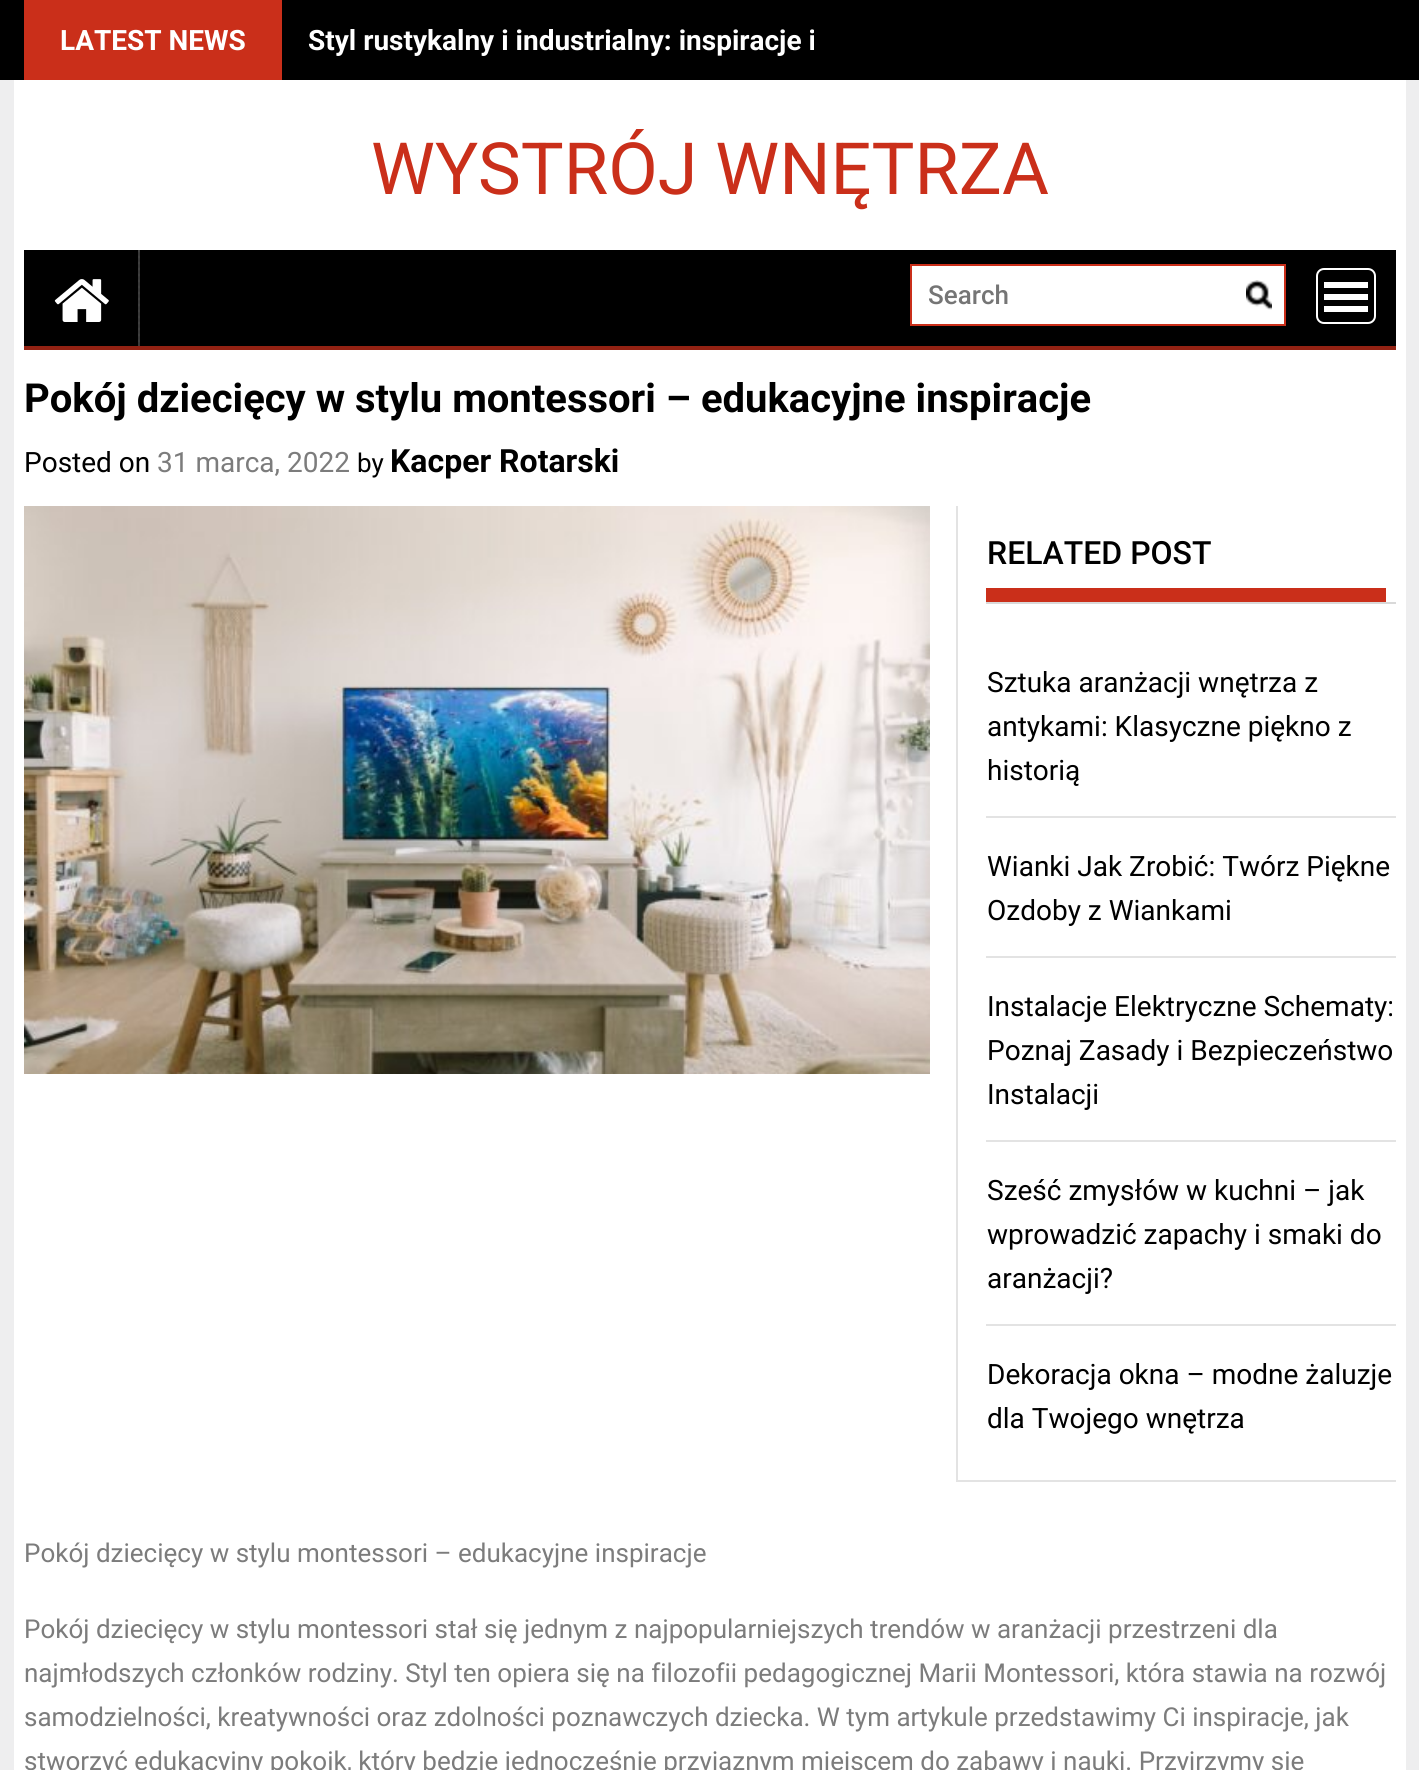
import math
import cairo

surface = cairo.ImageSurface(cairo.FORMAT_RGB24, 1419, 1770)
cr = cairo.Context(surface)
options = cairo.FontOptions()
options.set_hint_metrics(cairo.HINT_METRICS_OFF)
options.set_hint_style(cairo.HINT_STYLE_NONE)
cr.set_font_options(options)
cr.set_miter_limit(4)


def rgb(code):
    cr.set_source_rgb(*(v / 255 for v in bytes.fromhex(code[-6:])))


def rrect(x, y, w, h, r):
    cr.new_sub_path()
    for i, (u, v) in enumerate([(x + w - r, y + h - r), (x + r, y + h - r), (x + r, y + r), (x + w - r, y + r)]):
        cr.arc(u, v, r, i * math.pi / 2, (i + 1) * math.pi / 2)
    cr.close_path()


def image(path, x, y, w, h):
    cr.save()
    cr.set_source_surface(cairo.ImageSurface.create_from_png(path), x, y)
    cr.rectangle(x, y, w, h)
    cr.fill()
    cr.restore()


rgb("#eeeeef")
cr.paint()
for x, y, w, h, color in [
    (0, 0, 1419, 80, "#000000"),
    (24, 0, 258, 80, "#ca2f1a"),
    (14, 80, 1392, 1690, "#ffffff"),
    (24, 250, 1372, 96, "#000000"),
    (24, 346, 1372, 4, "#932213"),
]:
    rgb(color)
    cr.rectangle(x, y, w, h)
    cr.fill()
image("img/1.png", 138, 250, 2, 96)
image("img/2.png", 54, 279, 55, 43)
rgb("#ffffff")
cr.rectangle(911, 265, 374, 60)
cr.fill_preserve()
rgb("#ca2f1a")
cr.stroke()
image("img/3.png", 1246, 280, 26, 30)
rrect(1317, 269, 58, 54, 7)
rgb("#ffffff")
cr.stroke()
for x, y, w, h, color in [
    (1324, 306, 44, 6, "#ffffff"),
    (1324, 294, 44, 6, "#ffffff"),
    (1324, 282, 44, 6, "#ffffff"),
]:
    rgb(color)
    cr.rectangle(x, y, w, h)
    cr.fill()
image("img/4.png", 24, 506, 906, 568)
for x, y, w, h, color in [
    (956, 1480, 440, 2, "#e3e3e3"),
    (956, 506, 2, 976, "#e3e3e3"),
    (986, 602, 410, 2, "#d9d9d9"),
    (986, 588, 400, 14, "#ca2f1a"),
    (986, 816, 410, 2, "#e3e3e3"),
    (986, 956, 410, 2, "#e3e3e3"),
    (986, 1140, 410, 2, "#e3e3e3"),
    (986, 1324, 410, 2, "#e3e3e3"),
]:
    rgb(color)
    cr.rectangle(x, y, w, h)
    cr.fill()
cr.select_font_face("Roboto", cairo.FONT_SLANT_NORMAL, cairo.FONT_WEIGHT_BOLD)
cr.set_font_size(28)
rgb("#ffffff")
cr.move_to(60, 50)
cr.show_text("LATEST NEWS")
cr.move_to(308, 50)
cr.show_text("Styl rustykalny i industrialny: inspiracje i")
cr.select_font_face("Roboto")
cr.set_font_size(72)
rgb("#ca2f1a")
cr.move_to(371, 194)
cr.show_text("WYSTRÓJ WNĘTRZA")
cr.select_font_face("Roboto Medium")
cr.set_font_size(26)
rgb("#757575")
cr.move_to(928, 304)
cr.show_text("Search")
cr.select_font_face("Roboto", cairo.FONT_SLANT_NORMAL, cairo.FONT_WEIGHT_BOLD)
cr.set_font_size(40)
rgb("#000000")
cr.move_to(24, 412)
cr.show_text("Pokój dziecięcy w stylu montessori – edukacyjne inspiracje")
cr.select_font_face("Roboto")
cr.set_font_size(28)
cr.move_to(24, 472)
cr.show_text("Posted on")
rgb("#7c7c7c")
cr.move_to(157, 472)
cr.show_text("31 marca, 2022")
cr.set_font_size(26)
rgb("#000000")
cr.move_to(357, 472)
cr.show_text("by")
cr.select_font_face("Roboto", cairo.FONT_SLANT_NORMAL, cairo.FONT_WEIGHT_BOLD)
cr.set_font_size(32)
cr.move_to(390, 472)
cr.show_text("Kacper Rotarski")
cr.select_font_face("Roboto Medium")
cr.move_to(987, 564)
cr.show_text("RELATED POST")
cr.select_font_face("Roboto")
cr.set_font_size(28)
for x, y, s in [
    (987, 692, "Sztuka aranżacji wnętrza z"),
    (987, 736, "antykami: Klasyczne piękno z"),
    (987, 780, "historią"),
    (987, 876, "Wianki Jak Zrobić: Twórz Piękne"),
    (987, 920, "Ozdoby z Wiankami"),
    (987, 1016, "Instalacje Elektryczne Schematy:"),
    (987, 1060, "Poznaj Zasady i Bezpieczeństwo"),
    (987, 1104, "Instalacji"),
    (987, 1200, "Sześć zmysłów w kuchni – jak"),
    (987, 1244, "wprowadzić zapachy i smaki do"),
    (987, 1288, "aranżacji?"),
    (987, 1384, "Dekoracja okna – modne żaluzje"),
    (987, 1428, "dla Twojego wnętrza"),
]:
    cr.move_to(x, y)
    cr.show_text(s)
cr.set_font_size(26)
rgb("#7c7c7c")
for x, y, s in [
    (24, 1562, "Pokój dziecięcy w stylu montessori – edukacyjne inspiracje"),
    (24, 1638, "Pokój dziecięcy w stylu montessori stał się jednym z najpopularniejszych trendów w aranżacji przestrzeni dla"),
    (24, 1682, "najmłodszych członków rodziny. Styl ten opiera się na filozofii pedagogicznej Marii Montessori, która stawia na rozwój"),
    (24, 1726, "samodzielności, kreatywności oraz zdolności poznawczych dziecka. W tym artykule przedstawimy Ci inspiracje, jak"),
    (24, 1770, "stworzyć edukacyjny pokoik, który będzie jednocześnie przyjaznym miejscem do zabawy i nauki. Przyjrzymy się"),
]:
    cr.move_to(x, y)
    cr.show_text(s)
surface.write_to_png("page.png")
